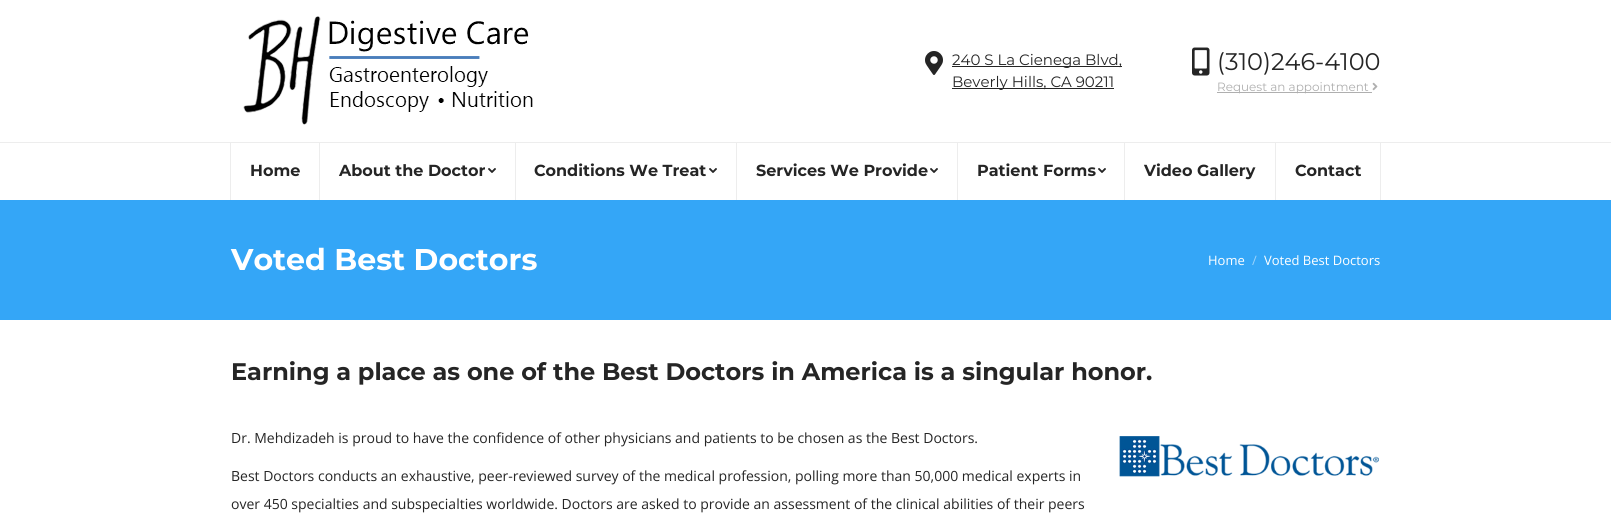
import math
import cairo

surface = cairo.ImageSurface(cairo.FORMAT_RGB24, 1611, 528)
cr = cairo.Context(surface)
options = cairo.FontOptions()
options.set_hint_metrics(cairo.HINT_METRICS_OFF)
options.set_hint_style(cairo.HINT_STYLE_NONE)
cr.set_font_options(options)
cr.set_miter_limit(4)


def rgb(code):
    cr.set_source_rgb(*(v / 255 for v in bytes.fromhex(code[-6:])))


def image(path, x, y, w, h):
    cr.save()
    cr.set_source_surface(cairo.ImageSurface.create_from_png(path), x, y)
    cr.rectangle(x, y, w, h)
    cr.fill()
    cr.restore()


rgb("#ffffff")
cr.paint()
image("img/1.png", 243, 16, 290, 109)
image("img/2.png", 925, 51, 18, 24)
rgb("#252525")
cr.rectangle(952, 66, 170, 1)
cr.fill()
cr.rectangle(952, 88, 162, 1)
cr.fill()
image("img/3.png", 1192, 47, 18, 29)
rgb("#afafaf")
cr.rectangle(1217, 92, 155, 1)
cr.fill()
image("img/4.png", 1372, 82, 6, 9)
for x, y, w, h, color in [
    (0, 142, 1611, 1, "#ededed"),
    (230, 142, 1, 58, "#ededed"),
    (319, 142, 1, 58, "#ededed"),
]:
    rgb(color)
    cr.rectangle(x, y, w, h)
    cr.fill()
image("img/5.png", 488, 168, 8, 5)
cr.rectangle(515, 142, 1, 58)
cr.fill()
image("img/5.png", 709, 168, 8, 5)
cr.rectangle(736, 142, 1, 58)
cr.fill()
image("img/5.png", 930, 168, 8, 5)
cr.rectangle(957, 142, 1, 58)
cr.fill()
image("img/5.png", 1098, 168, 8, 5)
for x, y, w, h, color in [
    (1124, 142, 1, 58, "#ededed"),
    (1275, 142, 1, 58, "#ededed"),
    (1380, 142, 1, 58, "#ededed"),
    (0, 200, 1611, 120, "#34a6f7"),
]:
    rgb(color)
    cr.rectangle(x, y, w, h)
    cr.fill()
image("img/6.png", 1119, 436, 260, 41)
cr.select_font_face("Montserrat")
cr.set_font_size(15)
rgb("#252525")
cr.move_to(952, 65)
cr.show_text("240 S La Cienega Blvd,")
cr.move_to(952, 87)
cr.show_text("Beverly Hills, CA 90211")
cr.set_font_size(24)
cr.move_to(1217, 70)
cr.show_text("(310)246-4100")
cr.set_font_size(12)
rgb("#afafaf")
cr.move_to(1217, 91)
cr.show_text("Request an appointment")
cr.select_font_face("Montserrat", cairo.FONT_SLANT_NORMAL, cairo.FONT_WEIGHT_BOLD)
cr.set_font_size(16)
rgb("#252525")
for x, y, s in [
    (250, 176, "Home"),
    (339, 176, "About the Doctor"),
    (534, 176, "Conditions We Treat"),
    (756, 176, "Services We Provide"),
    (977, 176, "Patient Forms"),
    (1144, 176, "Video Gallery"),
    (1295, 176, "Contact"),
]:
    cr.move_to(x, y)
    cr.show_text(s)
cr.set_font_size(30)
rgb("#ffffff")
cr.move_to(231, 270)
cr.show_text("Voted Best Doctors")
cr.select_font_face("Open Sans")
cr.set_font_size(13)
cr.move_to(1208, 265)
cr.show_text("Home")
rgb("#9ad3fb")
cr.move_to(1252, 265)
cr.show_text("/")
rgb("#ffffff")
cr.move_to(1264, 265)
cr.show_text("Voted Best Doctors")
cr.select_font_face("Montserrat", cairo.FONT_SLANT_NORMAL, cairo.FONT_WEIGHT_BOLD)
cr.set_font_size(24)
rgb("#252525")
cr.move_to(231, 380)
cr.show_text("Earning a place as one of the Best Doctors in America is a singular honor.")
cr.select_font_face("Open Sans")
cr.set_font_size(14)
for x, y, s in [
    (231, 443, "Dr. Mehdizadeh is proud to have the confidence of other physicians and patients to be chosen as the Best Doctors."),
    (231, 481, "Best Doctors conducts an exhaustive, peer-reviewed survey of the medical profession, polling more than 50,000 medical experts in"),
    (231, 509, "over 450 specialties and subspecialties worldwide. Doctors are asked to provide an assessment of the clinical abilities of their peers"),
]:
    cr.move_to(x, y)
    cr.show_text(s)
surface.write_to_png("page.png")
